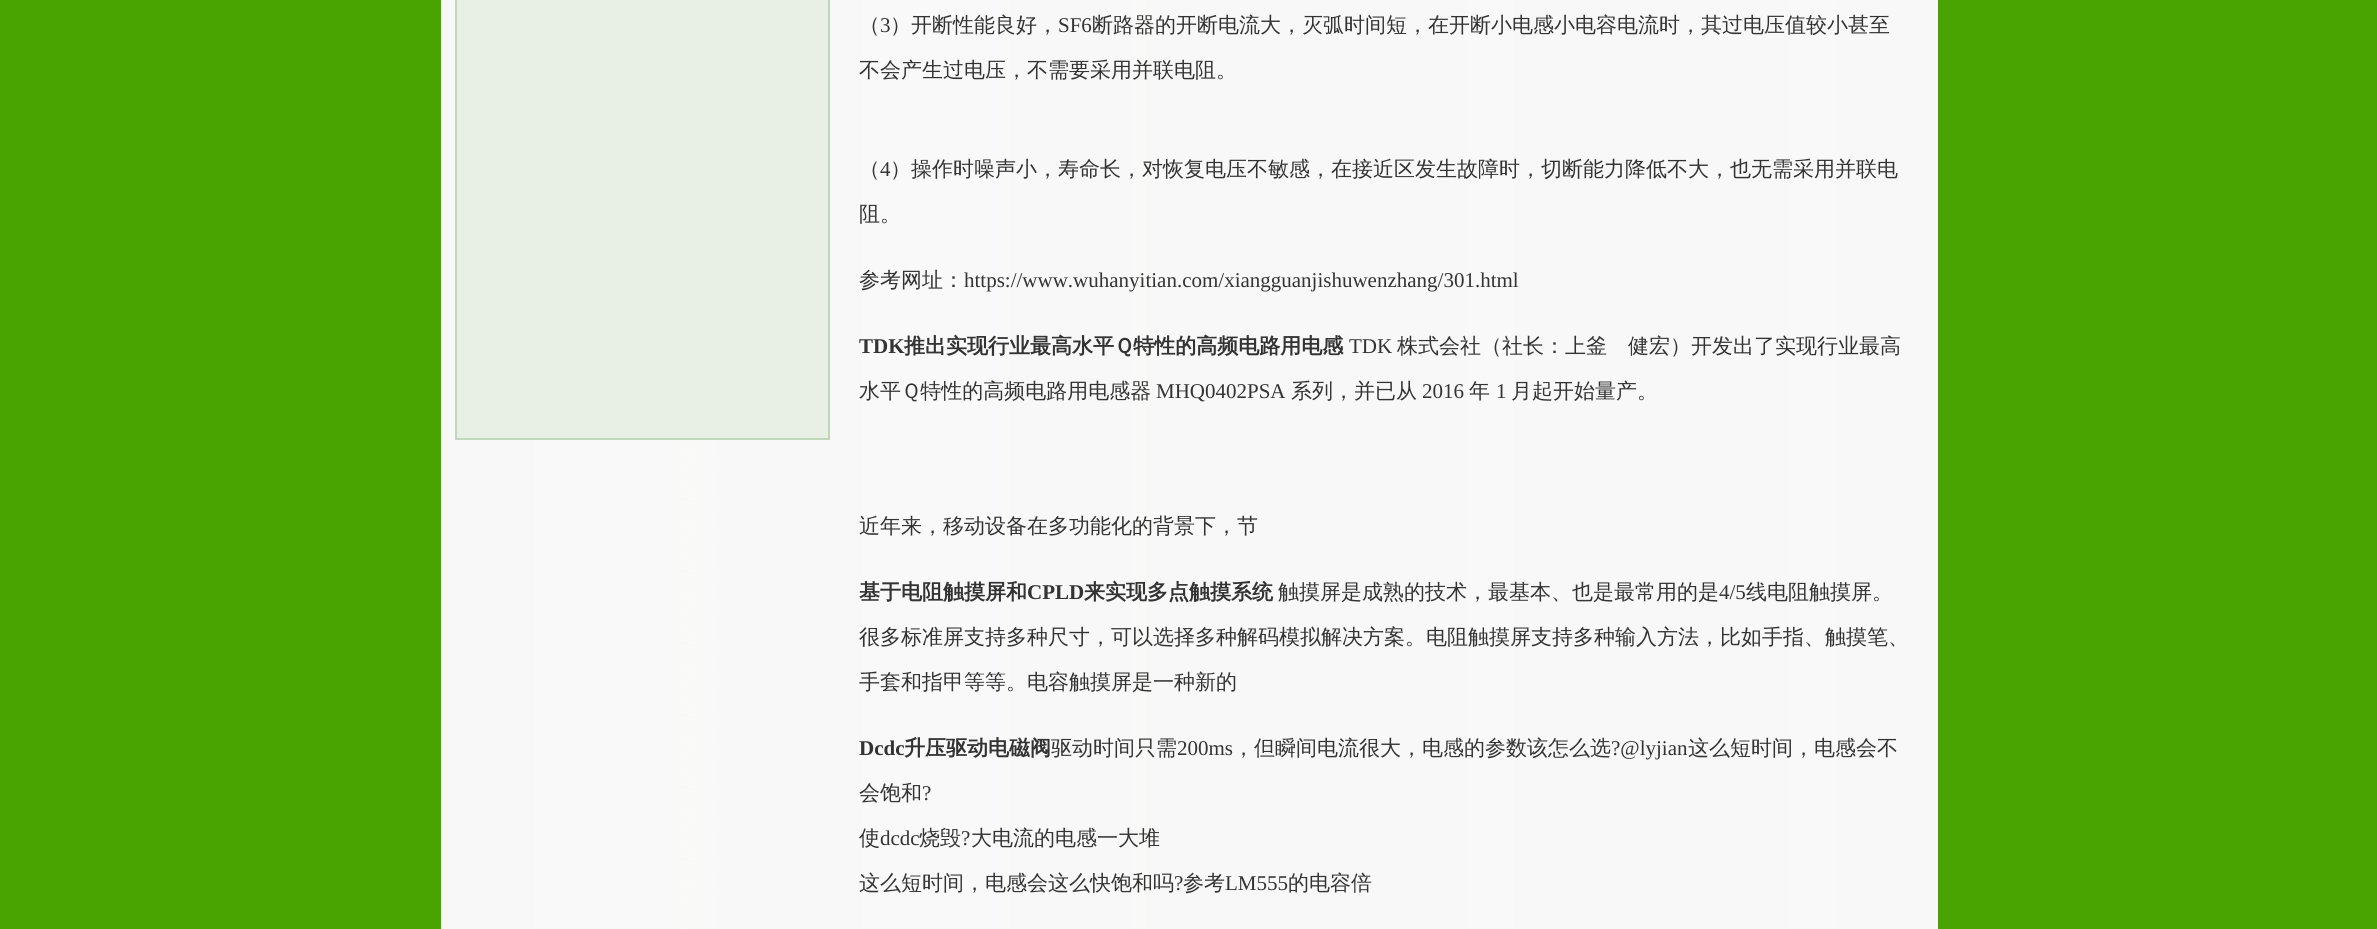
import math
import cairo

surface = cairo.ImageSurface(cairo.FORMAT_RGB24, 2377, 929)
cr = cairo.Context(surface)
options = cairo.FontOptions()
options.set_hint_metrics(cairo.HINT_METRICS_OFF)
options.set_hint_style(cairo.HINT_STYLE_NONE)
cr.set_font_options(options)
cr.set_miter_limit(4)


def rgb(code):
    cr.set_source_rgb(*(v / 255 for v in bytes.fromhex(code[-6:])))


def image(path, x, y, w, h):
    cr.save()
    cr.set_source_surface(cairo.ImageSurface.create_from_png(path), x, y)
    cr.rectangle(x, y, w, h)
    cr.fill()
    cr.restore()


rgb("#49a301")
cr.paint()
image("img/1.png", 441, 0, 1497, 929)
rgb("#e8f0e5")
cr.rectangle(456, -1, 373, 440)
cr.fill_preserve()
rgb("#c0d7bb")
cr.stroke()
cr.select_font_face("WenQuanYi Zen Hei Medium")
cr.set_font_size(21)
rgb("#333333")
cr.move_to(859, 32)
cr.show_text("（")
cr.select_font_face("Liberation Serif")
cr.move_to(880, 32)
cr.show_text("3")
cr.select_font_face("WenQuanYi Zen Hei Medium")
cr.move_to(890, 32)
cr.show_text("）开断性能良好，")
cr.select_font_face("Liberation Serif")
cr.move_to(1058, 32)
cr.show_text("SF6")
cr.select_font_face("WenQuanYi Zen Hei Medium")
for x, y, s in [
    (1092, 32, "断路器的开断电流大，灭弧时间短，在开断小电感小电容电流时，其过电压值较小甚至"),
    (859, 77, "不会产生过电压，不需要采用并联电阻。"),
    (859, 176, "（"),
]:
    cr.move_to(x, y)
    cr.show_text(s)
cr.select_font_face("Liberation Serif")
cr.move_to(880, 176)
cr.show_text("4")
cr.select_font_face("WenQuanYi Zen Hei Medium")
for x, y, s in [
    (890, 176, "）操作时噪声小，寿命长，对恢复电压不敏感，在接近区发生故障时，切断能力降低不大，也无需采用并联电"),
    (859, 221, "阻。"),
    (859, 287, "参考网址："),
]:
    cr.move_to(x, y)
    cr.show_text(s)
cr.select_font_face("Liberation Serif")
cr.move_to(964, 287)
cr.show_text("https://www.wuhanyitian.com/xiangguanjishuwenzhang/301.html")
cr.select_font_face("Liberation Serif", cairo.FONT_SLANT_NORMAL, cairo.FONT_WEIGHT_BOLD)
cr.move_to(859, 353)
cr.show_text("TDK")
cr.select_font_face("WenQuanYi Zen Hei", cairo.FONT_SLANT_NORMAL, cairo.FONT_WEIGHT_BOLD)
cr.move_to(904, 353)
cr.show_text("推出实现行业最高水平Ｑ特性的高频电路用电感")
cr.select_font_face("Liberation Serif")
cr.move_to(1349, 353)
cr.show_text("TDK")
cr.select_font_face("WenQuanYi Zen Hei Medium")
cr.move_to(1397, 353)
cr.show_text("株式会社（社长：上釜　健宏）开发出了实现行业最高")
cr.move_to(859, 398)
cr.show_text("水平Ｑ特性的高频电路用电感器")
cr.select_font_face("Liberation Serif")
cr.move_to(1156, 398)
cr.show_text("MHQ0402PSA")
cr.select_font_face("WenQuanYi Zen Hei Medium")
cr.move_to(1291, 398)
cr.show_text("系列，并已从")
cr.select_font_face("Liberation Serif")
cr.move_to(1422, 398)
cr.show_text("2016")
cr.select_font_face("WenQuanYi Zen Hei Medium")
cr.move_to(1469, 398)
cr.show_text("年")
cr.select_font_face("Liberation Serif")
cr.move_to(1496, 398)
cr.show_text("1")
cr.select_font_face("WenQuanYi Zen Hei Medium")
cr.move_to(1511, 398)
cr.show_text("月起开始量产。")
cr.move_to(859, 533)
cr.show_text("近年来，移动设备在多功能化的背景下，节")
cr.select_font_face("WenQuanYi Zen Hei", cairo.FONT_SLANT_NORMAL, cairo.FONT_WEIGHT_BOLD)
cr.move_to(859, 599)
cr.show_text("基于电阻触摸屏和")
cr.select_font_face("Liberation Serif", cairo.FONT_SLANT_NORMAL, cairo.FONT_WEIGHT_BOLD)
cr.move_to(1027, 599)
cr.show_text("CPLD")
cr.select_font_face("WenQuanYi Zen Hei", cairo.FONT_SLANT_NORMAL, cairo.FONT_WEIGHT_BOLD)
cr.move_to(1084, 599)
cr.show_text("来实现多点触摸系统")
cr.select_font_face("WenQuanYi Zen Hei Medium")
cr.move_to(1278, 599)
cr.show_text("触摸屏是成熟的技术，最基本、也是最常用的是")
cr.select_font_face("Liberation Serif")
cr.move_to(1719, 599)
cr.show_text("4/5")
cr.select_font_face("WenQuanYi Zen Hei Medium")
for x, y, s in [
    (1746, 599, "线电阻触摸屏。"),
    (859, 644, "很多标准屏支持多种尺寸，可以选择多种解码模拟解决方案。电阻触摸屏支持多种输入方法，比如手指、触摸笔、"),
    (859, 689, "手套和指甲等等。电容触摸屏是一种新的"),
]:
    cr.move_to(x, y)
    cr.show_text(s)
cr.select_font_face("Liberation Serif", cairo.FONT_SLANT_NORMAL, cairo.FONT_WEIGHT_BOLD)
cr.move_to(859, 755)
cr.show_text("Dcdc")
cr.select_font_face("WenQuanYi Zen Hei", cairo.FONT_SLANT_NORMAL, cairo.FONT_WEIGHT_BOLD)
cr.move_to(904, 755)
cr.show_text("升压驱动电磁阀")
cr.select_font_face("WenQuanYi Zen Hei Medium")
cr.move_to(1051, 755)
cr.show_text("驱动时间只需")
cr.select_font_face("Liberation Serif")
cr.move_to(1177, 755)
cr.show_text("200ms")
cr.select_font_face("WenQuanYi Zen Hei Medium")
cr.move_to(1233, 755)
cr.show_text("，但瞬间电流很大，电感的参数该怎么选")
cr.select_font_face("Liberation Serif")
cr.move_to(1611, 755)
cr.show_text("?@lyjian")
cr.select_font_face("WenQuanYi Zen Hei Medium")
cr.move_to(1688, 755)
cr.show_text("这么短时间，电感会不")
cr.move_to(859, 800)
cr.show_text("会饱和")
cr.select_font_face("Liberation Serif")
cr.move_to(922, 800)
cr.show_text("?")
cr.select_font_face("WenQuanYi Zen Hei Medium")
cr.move_to(859, 845)
cr.show_text("使")
cr.select_font_face("Liberation Serif")
cr.move_to(880, 845)
cr.show_text("dcdc")
cr.select_font_face("WenQuanYi Zen Hei Medium")
cr.move_to(919, 845)
cr.show_text("烧毁")
cr.select_font_face("Liberation Serif")
cr.move_to(961, 845)
cr.show_text("?")
cr.select_font_face("WenQuanYi Zen Hei Medium")
cr.move_to(971, 845)
cr.show_text("大电流的电感一大堆")
cr.move_to(859, 890)
cr.show_text("这么短时间，电感会这么快饱和吗")
cr.select_font_face("Liberation Serif")
cr.move_to(1174, 890)
cr.show_text("?")
cr.select_font_face("WenQuanYi Zen Hei Medium")
cr.move_to(1183, 890)
cr.show_text("参考")
cr.select_font_face("Liberation Serif")
cr.move_to(1225, 890)
cr.show_text("LM555")
cr.select_font_face("WenQuanYi Zen Hei Medium")
cr.move_to(1288, 890)
cr.show_text("的电容倍")
surface.write_to_png("page.png")
